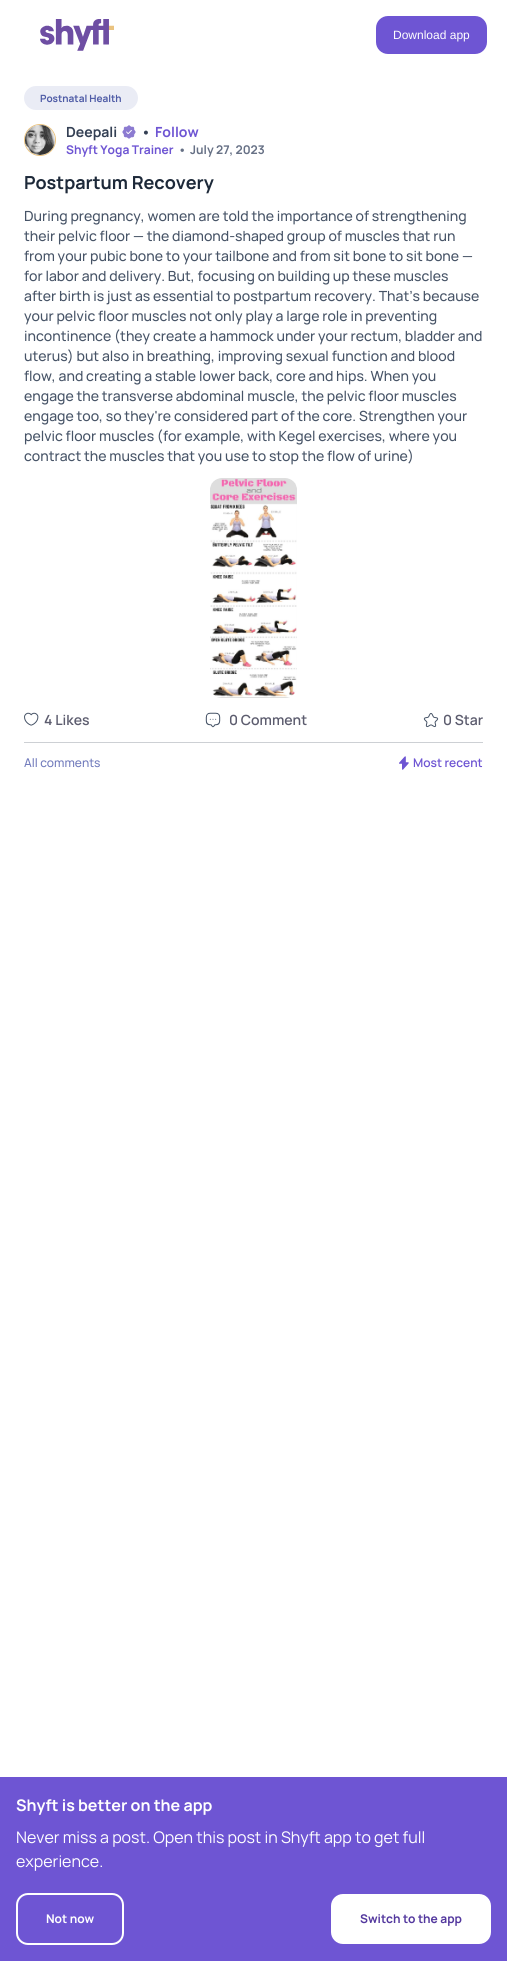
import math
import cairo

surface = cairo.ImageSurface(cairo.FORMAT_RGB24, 507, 1961)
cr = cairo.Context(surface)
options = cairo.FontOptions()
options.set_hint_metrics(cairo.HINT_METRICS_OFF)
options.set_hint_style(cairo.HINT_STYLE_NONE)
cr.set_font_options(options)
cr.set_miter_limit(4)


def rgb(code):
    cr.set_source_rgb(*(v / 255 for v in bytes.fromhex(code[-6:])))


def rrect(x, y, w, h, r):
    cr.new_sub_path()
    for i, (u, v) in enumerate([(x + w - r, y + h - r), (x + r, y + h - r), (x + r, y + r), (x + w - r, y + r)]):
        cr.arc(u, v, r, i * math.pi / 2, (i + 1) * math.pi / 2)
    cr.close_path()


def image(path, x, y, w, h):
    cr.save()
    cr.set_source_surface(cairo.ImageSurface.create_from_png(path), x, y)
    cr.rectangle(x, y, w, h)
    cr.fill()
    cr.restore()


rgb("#ffffff")
cr.paint()
image("img/1.png", 40, 19, 74, 32)
rgb("#6e55d3")
rrect(376, 16, 111, 38, 12)
cr.fill()
rgb("#eaecf5")
rrect(24, 86, 114, 24, 12)
cr.fill()
cr.arc(40, 140, 15.5, 0, 2 * math.pi)
rgb("#ebc481")
cr.set_line_width(1)
cr.stroke()
image("img/2.png", 25, 125, 30, 30)
image("img/3.png", 122, 125, 14, 14)
image("img/4.png", 210, 478, 87, 220)
image("img/5.png", 24, 712, 15, 14)
image("img/6.png", 205, 712, 16, 16)
image("img/7.png", 423, 713, 16, 15)
rgb("#cdd0d4")
cr.rectangle(24, 742, 459, 1)
cr.fill()
image("img/8.png", 399, 756, 10, 14)
rgb("#6e55d3")
cr.rectangle(0, 1777, 507, 184)
cr.fill()
rrect(17, 1894, 106, 50, 11)
rgb("#ffffff")
cr.set_line_width(2)
cr.stroke()
rrect(331, 1894, 160, 50, 12)
cr.fill()
cr.select_font_face("Liberation Sans")
cr.set_font_size(12)
cr.move_to(393, 39)
cr.show_text("Download app")
cr.select_font_face("Manrope", cairo.FONT_SLANT_NORMAL, cairo.FONT_WEIGHT_BOLD)
cr.set_font_size(10)
rgb("#4e5ba6")
cr.move_to(40, 102)
cr.show_text("Postnatal Health")
cr.set_font_size(14)
rgb("#344054")
cr.move_to(66, 137)
cr.show_text("Deepali")
cr.move_to(141, 137)
cr.show_text("•")
rgb("#6e55d3")
cr.move_to(155, 137)
cr.show_text("Follow")
cr.set_font_size(12)
cr.move_to(66, 154)
cr.show_text("Shyft Yoga Trainer")
rgb("#667085")
cr.move_to(178, 154)
cr.show_text("•")
cr.move_to(190, 154)
cr.show_text("July 27, 2023")
cr.set_font_size(18)
rgb("#1d2939")
cr.move_to(24, 189)
cr.show_text("Postpartum Recovery")
cr.select_font_face("Manrope Medium")
cr.set_font_size(14)
rgb("#475467")
for x, y, s in [
    (24, 221, "During pregnancy, women are told the importance of strengthening"),
    (24, 241, "their pelvic floor — the diamond-shaped group of muscles that run"),
    (24, 261, "from your pubic bone to your tailbone and from sit bone to sit bone —"),
    (24, 281, "for labor and delivery. But, focusing on building up these muscles"),
    (24, 301, "after birth is just as essential to postpartum recovery. That’s because"),
    (24, 321, "your pelvic floor muscles not only play a large role in preventing"),
    (24, 341, "incontinence (they create a hammock under your rectum, bladder and"),
    (24, 361, "uterus) but also in breathing, improving sexual function and blood"),
    (24, 381, "flow, and creating a stable lower back, core and hips. When you"),
    (24, 401, "engage the transverse abdominal muscle, the pelvic floor muscles"),
    (24, 421, "engage too, so they're considered part of the core. Strengthen your"),
    (24, 441, "pelvic floor muscles (for example, with Kegel exercises, where you"),
    (24, 461, "contract the muscles that you use to stop the flow of urine)"),
]:
    cr.move_to(x, y)
    cr.show_text(s)
cr.select_font_face("Manrope SemiBold")
rgb("#5c5c6e")
for x, y, s in [
    (44, 725, "4 Likes"),
    (229, 725, "0 Comment"),
    (443, 725, "0 Star"),
]:
    cr.move_to(x, y)
    cr.show_text(s)
cr.select_font_face("Manrope Medium")
cr.set_font_size(12)
rgb("#717bbc")
cr.move_to(24, 767)
cr.show_text("All comments")
cr.select_font_face("Manrope SemiBold")
rgb("#6e55d3")
cr.move_to(413, 767)
cr.show_text("Most recent")
cr.select_font_face("Manrope", cairo.FONT_SLANT_NORMAL, cairo.FONT_WEIGHT_BOLD)
cr.set_font_size(16)
rgb("#ffffff")
cr.move_to(16, 1811)
cr.show_text("Shyft is better on the app")
cr.select_font_face("Manrope")
cr.move_to(16, 1843)
cr.show_text("Never miss a post. Open this post in Shyft app to get full")
cr.move_to(16, 1867)
cr.show_text("experience.")
cr.select_font_face("Manrope", cairo.FONT_SLANT_NORMAL, cairo.FONT_WEIGHT_BOLD)
cr.set_font_size(12)
cr.move_to(46, 1923)
cr.show_text("Not now")
rgb("#53389e")
cr.move_to(360, 1923)
cr.show_text("Switch to the app")
surface.write_to_png("page.png")
